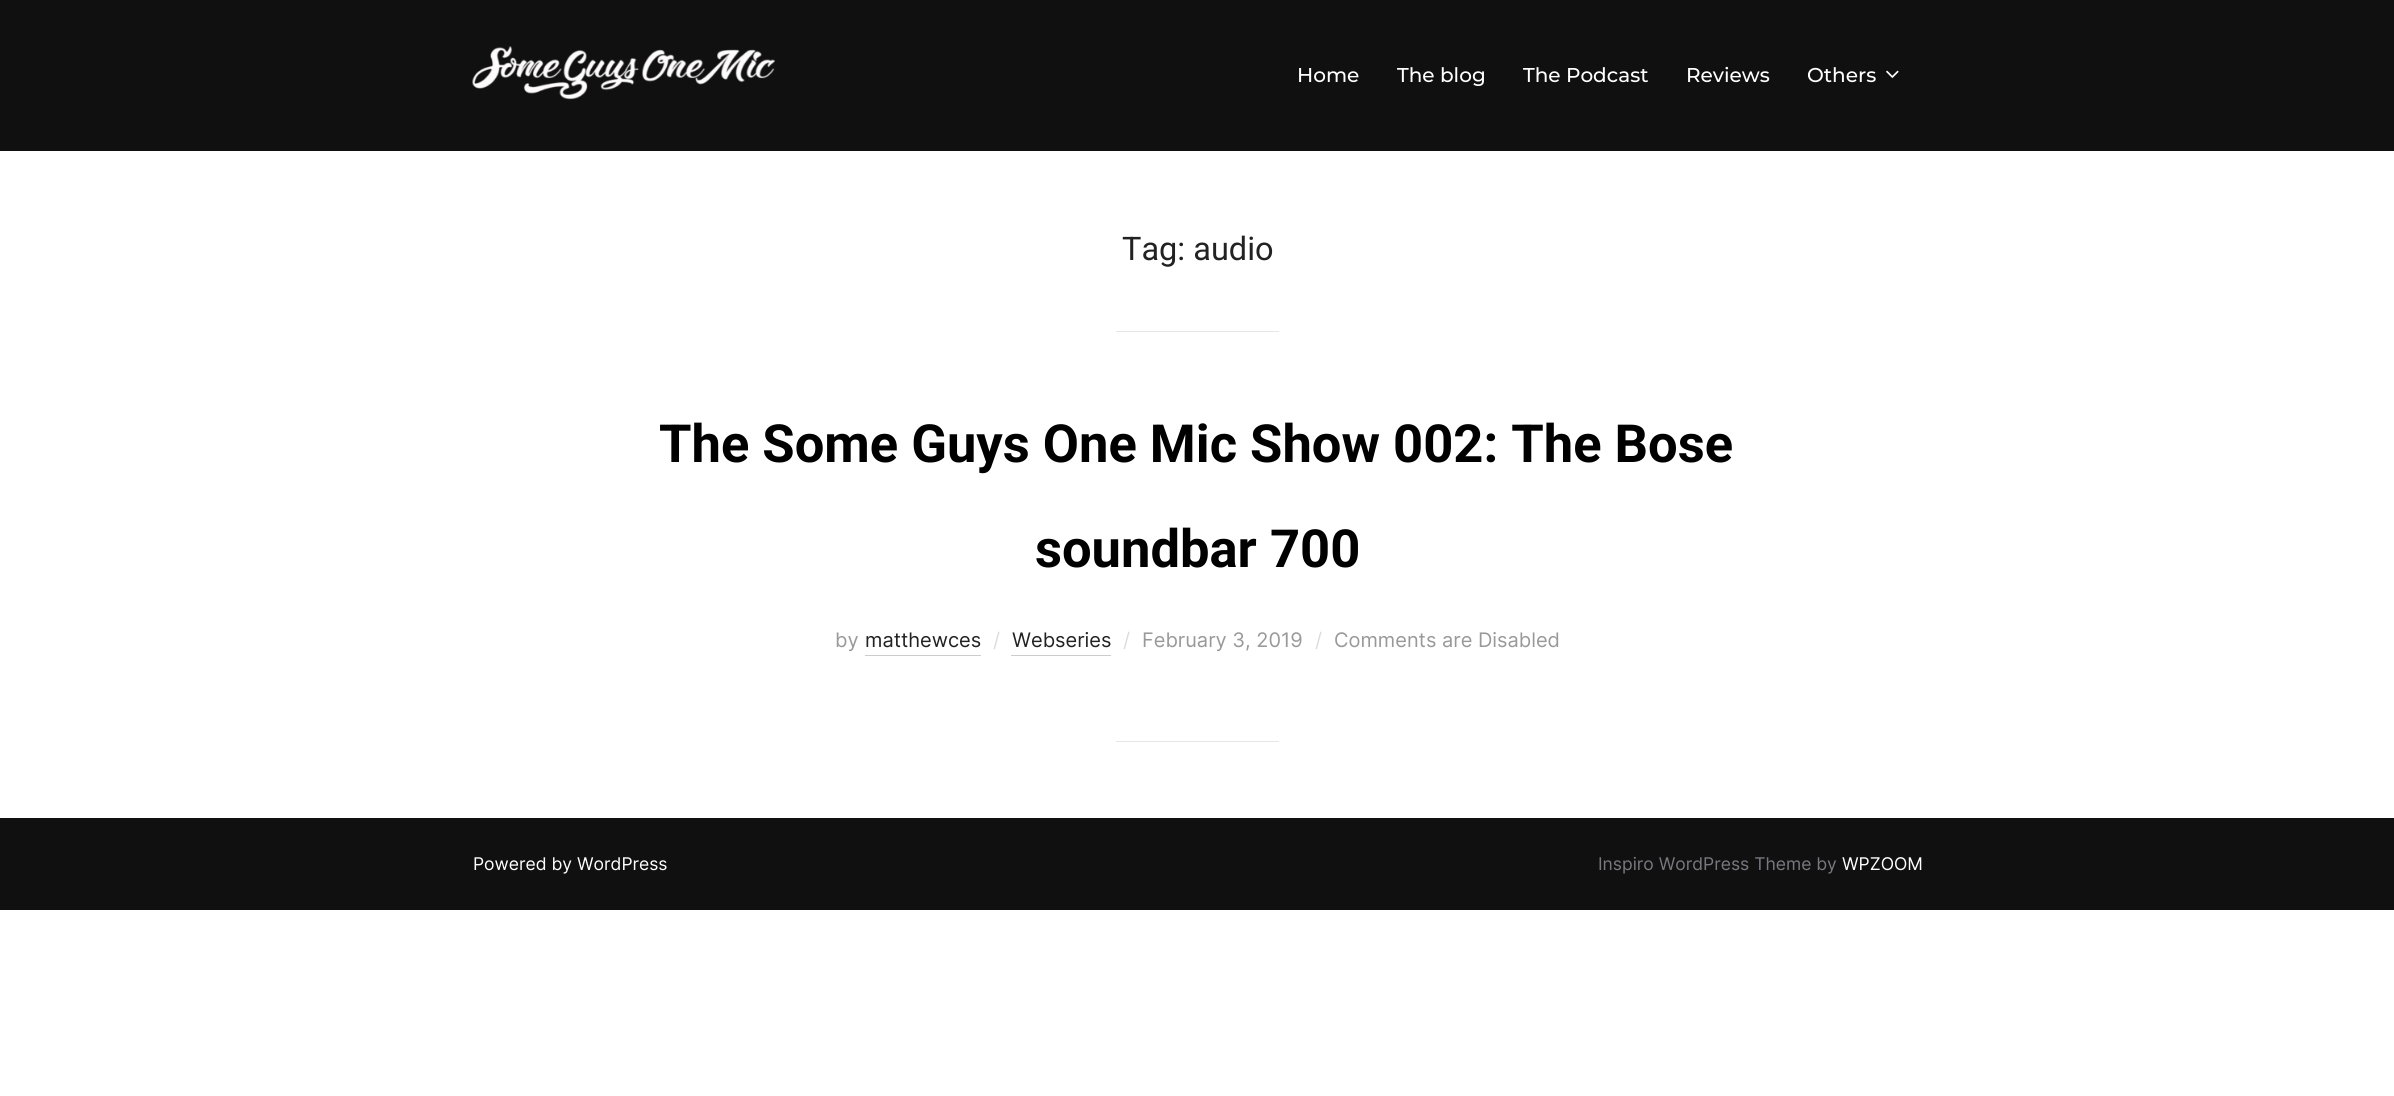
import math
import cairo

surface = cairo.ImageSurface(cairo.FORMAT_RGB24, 2394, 1096)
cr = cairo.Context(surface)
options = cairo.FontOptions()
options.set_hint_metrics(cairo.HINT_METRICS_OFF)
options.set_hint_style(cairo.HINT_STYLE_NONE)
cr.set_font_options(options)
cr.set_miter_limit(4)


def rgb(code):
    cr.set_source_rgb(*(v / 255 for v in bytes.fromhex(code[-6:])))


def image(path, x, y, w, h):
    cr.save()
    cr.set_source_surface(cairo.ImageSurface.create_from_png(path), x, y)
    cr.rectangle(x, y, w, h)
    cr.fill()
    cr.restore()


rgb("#ffffff")
cr.paint()
rgb("#101010")
cr.rectangle(0, 0, 2394, 151)
cr.fill()
image("img/1.png", 472, 46, 303, 54)
image("img/2.png", 1886, 70, 13, 8)
for x, y, w, h, color in [
    (1116, 331, 163, 1, "#e6e6e6"),
    (865, 655, 116, 1, "#cccccc"),
    (1011, 655, 100, 1, "#cccccc"),
    (1116, 741, 163, 1, "#e6e6e6"),
    (0, 818, 2394, 92, "#101010"),
]:
    rgb(color)
    cr.rectangle(x, y, w, h)
    cr.fill()
cr.select_font_face("Montserrat Medium")
cr.set_font_size(20)
rgb("#ffffff")
for x, y, s in [
    (1297, 82, "Home"),
    (1397, 82, "The blog"),
    (1523, 82, "The Podcast"),
    (1686, 82, "Reviews"),
    (1807, 82, "Others"),
]:
    cr.move_to(x, y)
    cr.show_text(s)
cr.select_font_face("Roboto")
cr.set_font_size(32.5)
rgb("#222222")
cr.move_to(1122, 260)
cr.show_text("Tag: audio")
cr.select_font_face("Roboto", cairo.FONT_SLANT_NORMAL, cairo.FONT_WEIGHT_BOLD)
cr.set_font_size(52.5)
rgb("#000000")
cr.move_to(659, 462)
cr.show_text("The Some Guys One Mic Show 002: The Bose")
cr.move_to(1035, 567)
cr.show_text("soundbar 700")
cr.select_font_face("Inter")
cr.set_font_size(20)
rgb("#999999")
cr.move_to(835, 647)
cr.show_text("by")
rgb("#222222")
cr.move_to(865, 647)
cr.show_text("matthewces")
rgb("#dbdddd")
cr.move_to(993, 647)
cr.show_text("/")
rgb("#222222")
cr.move_to(1012, 647)
cr.show_text("Webseries")
rgb("#dbdddd")
cr.move_to(1123, 647)
cr.show_text("/")
rgb("#999999")
cr.move_to(1142, 647)
cr.show_text("February 3, 2019")
rgb("#dbdddd")
cr.move_to(1315, 647)
cr.show_text("/")
rgb("#999999")
cr.move_to(1334, 647)
cr.show_text("Comments are Disabled")
cr.set_font_size(17.5)
rgb("#ffffff")
cr.move_to(473, 870)
cr.show_text("Powered by WordPress")
rgb("#78787f")
cr.move_to(1598, 870)
cr.show_text("Inspiro WordPress Theme by")
rgb("#ffffff")
cr.move_to(1842, 870)
cr.show_text("WPZOOM")
surface.write_to_png("page.png")
